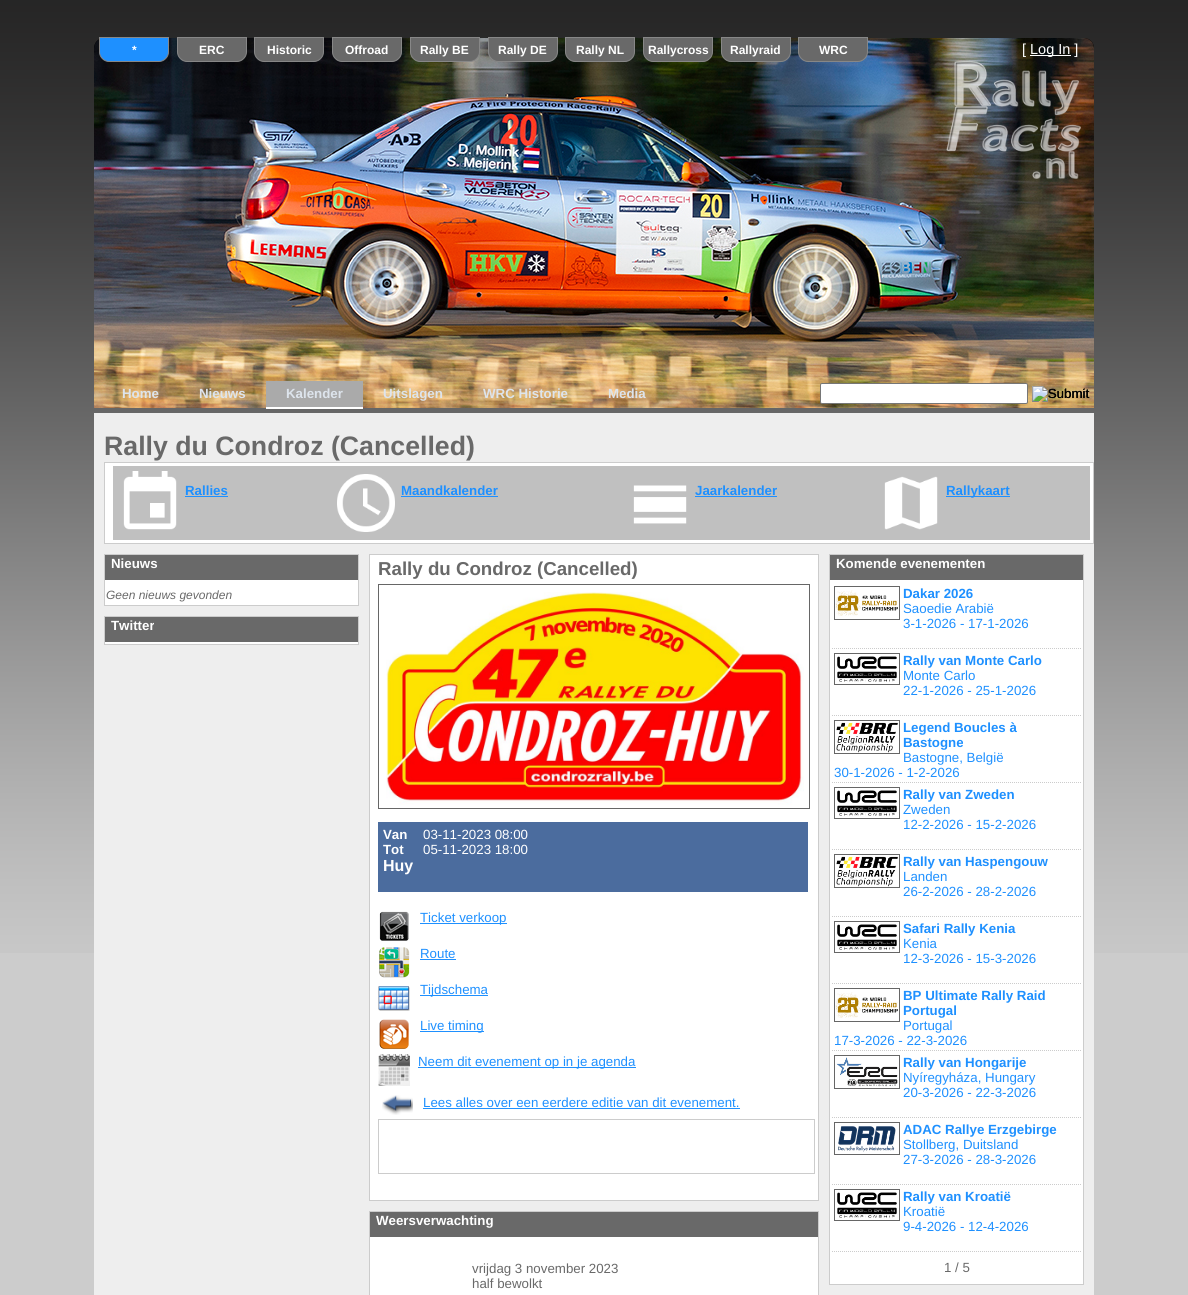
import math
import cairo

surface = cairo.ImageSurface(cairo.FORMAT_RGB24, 1188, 1295)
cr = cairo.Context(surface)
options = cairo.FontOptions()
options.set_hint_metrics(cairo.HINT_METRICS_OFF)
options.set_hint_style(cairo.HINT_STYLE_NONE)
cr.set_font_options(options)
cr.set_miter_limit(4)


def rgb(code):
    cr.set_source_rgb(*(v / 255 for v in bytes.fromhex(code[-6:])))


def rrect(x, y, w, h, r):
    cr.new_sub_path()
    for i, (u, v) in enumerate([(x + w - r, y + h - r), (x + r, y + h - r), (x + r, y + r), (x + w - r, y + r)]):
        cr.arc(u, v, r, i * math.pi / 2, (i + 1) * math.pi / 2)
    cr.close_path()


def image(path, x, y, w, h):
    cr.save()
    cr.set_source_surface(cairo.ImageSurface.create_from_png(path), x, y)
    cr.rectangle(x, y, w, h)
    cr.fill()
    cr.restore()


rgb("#cccccc")
cr.paint()
image("img/1.png", 0, 0, 1188, 953)
rgb("#000000")
cr.new_path()
cr.move_to(104, 38)
cr.line_to(1084, 38)
cr.curve_to(1089.5, 38, 1094, 42.5, 1094, 48)
cr.line_to(1094, 408)
cr.line_to(94, 408)
cr.line_to(94, 48)
cr.curve_to(94, 42.5, 98.5, 38, 104, 38)
cr.close_path()
cr.fill()
image("img/2.png", 94, 38, 1000, 370)
rgb("#1e90ff")
cr.new_path()
cr.move_to(99.5, 37.5)
cr.line_to(168.5, 37.5)
cr.line_to(168.5, 52)
cr.curve_to(168.5, 57, 164, 61.5, 159, 61.5)
cr.line_to(109, 61.5)
cr.curve_to(104, 61.5, 99.5, 57, 99.5, 52)
cr.close_path()
cr.fill_preserve()
rgb("#878787")
cr.set_line_width(1)
cr.stroke()
rgb("#696969")
cr.new_path()
cr.move_to(177.5, 37.5)
cr.line_to(246.5, 37.5)
cr.line_to(246.5, 52)
cr.curve_to(246.5, 57, 242, 61.5, 237, 61.5)
cr.line_to(187, 61.5)
cr.curve_to(182, 61.5, 177.5, 57, 177.5, 52)
cr.close_path()
cr.fill_preserve()
rgb("#878787")
cr.stroke()
rgb("#696969")
cr.new_path()
cr.move_to(254.5, 37.5)
cr.line_to(323.5, 37.5)
cr.line_to(323.5, 52)
cr.curve_to(323.5, 57, 319, 61.5, 314, 61.5)
cr.line_to(264, 61.5)
cr.curve_to(259, 61.5, 254.5, 57, 254.5, 52)
cr.close_path()
cr.fill_preserve()
rgb("#878787")
cr.stroke()
rgb("#696969")
cr.new_path()
cr.move_to(332.5, 37.5)
cr.line_to(401.5, 37.5)
cr.line_to(401.5, 52)
cr.curve_to(401.5, 57, 397, 61.5, 392, 61.5)
cr.line_to(342, 61.5)
cr.curve_to(337, 61.5, 332.5, 57, 332.5, 52)
cr.close_path()
cr.fill_preserve()
rgb("#878787")
cr.stroke()
rgb("#696969")
cr.new_path()
cr.move_to(410.5, 37.5)
cr.line_to(479.5, 37.5)
cr.line_to(479.5, 52)
cr.curve_to(479.5, 57, 475, 61.5, 470, 61.5)
cr.line_to(420, 61.5)
cr.curve_to(415, 61.5, 410.5, 57, 410.5, 52)
cr.close_path()
cr.fill_preserve()
rgb("#878787")
cr.stroke()
rgb("#696969")
cr.new_path()
cr.move_to(488.5, 37.5)
cr.line_to(557.5, 37.5)
cr.line_to(557.5, 52)
cr.curve_to(557.5, 57, 553, 61.5, 548, 61.5)
cr.line_to(498, 61.5)
cr.curve_to(493, 61.5, 488.5, 57, 488.5, 52)
cr.close_path()
cr.fill_preserve()
rgb("#878787")
cr.stroke()
rgb("#696969")
cr.new_path()
cr.move_to(565.5, 37.5)
cr.line_to(634.5, 37.5)
cr.line_to(634.5, 52)
cr.curve_to(634.5, 57, 630, 61.5, 625, 61.5)
cr.line_to(575, 61.5)
cr.curve_to(570, 61.5, 565.5, 57, 565.5, 52)
cr.close_path()
cr.fill_preserve()
rgb("#878787")
cr.stroke()
rgb("#696969")
cr.new_path()
cr.move_to(643.5, 37.5)
cr.line_to(712.5, 37.5)
cr.line_to(712.5, 52)
cr.curve_to(712.5, 57, 708, 61.5, 703, 61.5)
cr.line_to(653, 61.5)
cr.curve_to(648, 61.5, 643.5, 57, 643.5, 52)
cr.close_path()
cr.fill_preserve()
rgb("#878787")
cr.stroke()
rgb("#696969")
cr.new_path()
cr.move_to(721.5, 37.5)
cr.line_to(790.5, 37.5)
cr.line_to(790.5, 52)
cr.curve_to(790.5, 57, 786, 61.5, 781, 61.5)
cr.line_to(731, 61.5)
cr.curve_to(726, 61.5, 721.5, 57, 721.5, 52)
cr.close_path()
cr.fill_preserve()
rgb("#878787")
cr.stroke()
rgb("#696969")
cr.new_path()
cr.move_to(798.5, 37.5)
cr.line_to(867.5, 37.5)
cr.line_to(867.5, 52)
cr.curve_to(867.5, 57, 863, 61.5, 858, 61.5)
cr.line_to(808, 61.5)
cr.curve_to(803, 61.5, 798.5, 57, 798.5, 52)
cr.close_path()
cr.fill_preserve()
rgb("#878787")
cr.stroke()
rgb("#ffffff")
cr.rectangle(1030, 55, 41, 1)
cr.fill()
image("img/3.png", 946, 61, 135, 118)
rgb("#aaaaaa")
cr.rectangle(266, 381, 97, 26)
cr.fill()
rgb("#ffffff")
cr.rectangle(266, 407, 97, 2)
cr.fill()
rrect(820.5, 383.5, 207, 20, 1.5)
cr.fill_preserve()
rgb("#767676")
cr.stroke()
image("img/4.png", 1032, 386, 57, 16)
rgb("#eeeeee")
cr.rectangle(94, 413, 1000, 882)
cr.fill()
rgb("#ffffff")
cr.rectangle(104.5, 462.5, 989, 81)
cr.fill_preserve()
rgb("#cccccc")
cr.stroke()
rgb("#c0c0c0")
cr.rectangle(113, 466, 977, 74)
cr.fill()
image("img/5.png", 123, 471, 54, 59)
rgb("#1e90ff")
cr.rectangle(185, 496, 43, 1)
cr.fill()
image("img/6.png", 337, 474, 58, 58)
cr.rectangle(401, 496, 97, 1)
cr.fill()
image("img/7.png", 633, 485, 54, 39)
cr.rectangle(695, 496, 82, 1)
cr.fill()
image("img/8.png", 884, 476, 54, 54)
cr.rectangle(946, 496, 64, 1)
cr.fill()
rgb("#ffffff")
cr.rectangle(105, 580, 253, 25)
cr.fill()
cr.rectangle(104.5, 554.5, 254, 51)
rgb("#cccccc")
cr.stroke()
rgb("#696969")
cr.rectangle(105, 555, 253, 25)
cr.fill()
rgb("#ffffff")
cr.rectangle(105, 642, 253, 2)
cr.fill()
cr.rectangle(104.5, 616.5, 254, 28)
rgb("#cccccc")
cr.stroke()
rgb("#696969")
cr.rectangle(105, 617, 253, 25)
cr.fill()
rgb("#ffffff")
cr.rectangle(369.5, 554.5, 449, 646)
cr.fill_preserve()
rgb("#cccccc")
cr.stroke()
cr.rectangle(378.5, 584.5, 431, 224)
rgb("#666666")
cr.stroke()
image("img/9.png", 386, 592, 418, 213)
rgb("#4b6c9e")
cr.rectangle(378, 822, 430, 70)
cr.fill()
image("img/10.png", 379, 911, 30, 30)
rgb("#1e90ff")
cr.rectangle(420, 923, 87, 1)
cr.fill()
image("img/11.png", 379, 947, 31, 31)
cr.rectangle(420, 959, 36, 1)
cr.fill()
image("img/12.png", 378, 986, 32, 25)
cr.rectangle(420, 995, 68, 1)
cr.fill()
image("img/13.png", 379, 1019, 30, 30)
cr.rectangle(420, 1031, 64, 1)
cr.fill()
image("img/14.png", 378, 1054, 32, 32)
cr.rectangle(418, 1067, 218, 1)
cr.fill()
image("img/15.png", 382, 1095, 31, 20)
cr.rectangle(423, 1108, 317, 1)
cr.fill()
cr.rectangle(378.5, 1119.5, 436, 54)
rgb("#cccccc")
cr.stroke()
rgb("#ffffff")
cr.rectangle(370, 1237, 448, 58)
cr.fill()
cr.rectangle(369.5, 1211.5, 449, 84)
rgb("#cccccc")
cr.stroke()
rgb("#696969")
cr.rectangle(370, 1212, 448, 25)
cr.fill()
rgb("#ffffff")
cr.rectangle(830, 580, 253, 704)
cr.fill()
cr.rectangle(829.5, 554.5, 254, 730)
rgb("#cccccc")
cr.stroke()
rgb("#696969")
cr.rectangle(830, 555, 253, 25)
cr.fill()
cr.new_path()
cr.move_to(832, 648.5)
cr.line_to(1081, 648.5)
rgb("#cccccc")
cr.set_dash([1, 1])
cr.stroke()
cr.rectangle(834.5, 586.5, 65, 33)
rgb("#666666")
cr.set_dash([])
cr.stroke()
image("img/16.png", 835, 590, 63, 26)
cr.new_path()
cr.move_to(832, 715.5)
cr.line_to(1081, 715.5)
rgb("#cccccc")
cr.set_dash([1, 1])
cr.stroke()
cr.rectangle(834.5, 653.5, 65, 31)
rgb("#666666")
cr.set_dash([])
cr.stroke()
image("img/17.png", 837, 656, 60, 26)
cr.new_path()
cr.move_to(832, 782.5)
cr.line_to(1081, 782.5)
rgb("#cccccc")
cr.set_dash([1, 1])
cr.stroke()
cr.rectangle(834.5, 720.5, 65, 33)
rgb("#666666")
cr.set_dash([])
cr.stroke()
image("img/18.png", 836, 722, 62, 31)
cr.new_path()
cr.move_to(832, 849.5)
cr.line_to(1081, 849.5)
rgb("#cccccc")
cr.set_dash([1, 1])
cr.stroke()
cr.rectangle(834.5, 787.5, 65, 31)
rgb("#666666")
cr.set_dash([])
cr.stroke()
image("img/17.png", 837, 790, 60, 26)
cr.new_path()
cr.move_to(832, 916.5)
cr.line_to(1081, 916.5)
rgb("#cccccc")
cr.set_dash([1, 1])
cr.stroke()
cr.rectangle(834.5, 854.5, 65, 33)
rgb("#666666")
cr.set_dash([])
cr.stroke()
image("img/18.png", 836, 856, 62, 31)
cr.new_path()
cr.move_to(832, 983.5)
cr.line_to(1081, 983.5)
rgb("#cccccc")
cr.set_dash([1, 1])
cr.stroke()
cr.rectangle(834.5, 921.5, 65, 31)
rgb("#666666")
cr.set_dash([])
cr.stroke()
image("img/17.png", 837, 924, 60, 26)
cr.new_path()
cr.move_to(832, 1050.5)
cr.line_to(1081, 1050.5)
rgb("#cccccc")
cr.set_dash([1, 1])
cr.stroke()
cr.rectangle(834.5, 988.5, 65, 33)
rgb("#666666")
cr.set_dash([])
cr.stroke()
image("img/16.png", 835, 992, 63, 26)
cr.new_path()
cr.move_to(832, 1117.5)
cr.line_to(1081, 1117.5)
rgb("#cccccc")
cr.set_dash([1, 1])
cr.stroke()
cr.rectangle(834.5, 1055.5, 65, 33)
rgb("#666666")
cr.set_dash([])
cr.stroke()
image("img/19.png", 836, 1057, 62, 30)
cr.new_path()
cr.move_to(832, 1184.5)
cr.line_to(1081, 1184.5)
rgb("#cccccc")
cr.set_dash([1, 1])
cr.stroke()
cr.rectangle(834.5, 1122.5, 65, 32)
rgb("#666666")
cr.set_dash([])
cr.stroke()
image("img/20.png", 838, 1126, 58, 26)
cr.new_path()
cr.move_to(832, 1251.5)
cr.line_to(1081, 1251.5)
rgb("#cccccc")
cr.set_dash([1, 1])
cr.stroke()
cr.rectangle(834.5, 1189.5, 65, 31)
rgb("#666666")
cr.set_dash([])
cr.stroke()
image("img/17.png", 837, 1192, 60, 26)
cr.select_font_face("Liberation Sans", cairo.FONT_SLANT_NORMAL, cairo.FONT_WEIGHT_BOLD)
cr.set_font_size(12)
rgb("#ffffff")
for x, y, s in [
    (132, 54, "*"),
    (199, 54, "ERC"),
    (267, 54, "Historic"),
    (345, 54, "Offroad"),
    (420, 54, "Rally BE"),
    (498, 54, "Rally DE"),
    (576, 54, "Rally NL"),
    (648, 54, "Rallycross"),
    (730, 54, "Rallyraid"),
    (819, 54, "WRC"),
]:
    cr.move_to(x, y)
    cr.show_text(s)
cr.select_font_face("Liberation Sans")
cr.set_font_size(14.5)
cr.move_to(1022, 54)
cr.show_text("[")
cr.move_to(1030, 54)
cr.show_text("Log In ]")
cr.select_font_face("Liberation Sans", cairo.FONT_SLANT_NORMAL, cairo.FONT_WEIGHT_BOLD)
cr.set_font_size(13.3)
rgb("#dde4ec")
for x, y, s in [
    (122, 398, "Home"),
    (199, 398, "Nieuws"),
    (286, 398, "Kalender"),
    (383, 398, "Uitslagen"),
    (483, 398, "WRC Historie"),
    (608, 398, "Media"),
]:
    cr.move_to(x, y)
    cr.show_text(s)
cr.select_font_face("Liberation Sans")
rgb("#000000")
cr.move_to(1048, 398)
cr.show_text("Submit")
cr.select_font_face("Liberation Sans", cairo.FONT_SLANT_NORMAL, cairo.FONT_WEIGHT_BOLD)
cr.set_font_size(26.7)
rgb("#696969")
cr.move_to(104, 455)
cr.show_text("Rally du Condroz (Cancelled)")
cr.set_font_size(13.3)
rgb("#1e90ff")
for x, y, s in [
    (185, 495, "Rallies"),
    (401, 495, "Maandkalender"),
    (695, 495, "Jaarkalender"),
    (946, 495, "Rallykaart"),
]:
    cr.move_to(x, y)
    cr.show_text(s)
rgb("#ffffff")
cr.move_to(111, 568)
cr.show_text("Nieuws")
cr.select_font_face("Liberation Sans", cairo.FONT_SLANT_ITALIC)
cr.set_font_size(12)
rgb("#696969")
cr.move_to(106, 599)
cr.show_text("Geen nieuws gevonden")
cr.select_font_face("Liberation Sans", cairo.FONT_SLANT_NORMAL, cairo.FONT_WEIGHT_BOLD)
cr.set_font_size(13.3)
rgb("#ffffff")
cr.move_to(111, 630)
cr.show_text("Twitter")
cr.set_font_size(18.7)
rgb("#696969")
cr.move_to(378, 575)
cr.show_text("Rally du Condroz (Cancelled)")
cr.set_font_size(13.3)
rgb("#ffffff")
cr.move_to(383, 839)
cr.show_text("Van")
cr.select_font_face("Liberation Sans")
cr.move_to(423, 839)
cr.show_text("03-11-2023 08:00")
cr.select_font_face("Liberation Sans", cairo.FONT_SLANT_NORMAL, cairo.FONT_WEIGHT_BOLD)
cr.move_to(383, 854)
cr.show_text("Tot")
cr.select_font_face("Liberation Sans")
cr.move_to(423, 854)
cr.show_text("05-11-2023 18:00")
cr.select_font_face("Liberation Sans", cairo.FONT_SLANT_NORMAL, cairo.FONT_WEIGHT_BOLD)
cr.set_font_size(16)
cr.move_to(383, 871)
cr.show_text("Huy")
cr.select_font_face("Liberation Sans")
cr.set_font_size(13.3)
rgb("#1e90ff")
for x, y, s in [
    (420, 922, "Ticket verkoop"),
    (420, 958, "Route"),
    (420, 994, "Tijdschema"),
    (420, 1030, "Live timing"),
    (418, 1066, "Neem dit evenement op in je agenda"),
    (423, 1107, "Lees alles over een eerdere editie van dit evenement."),
]:
    cr.move_to(x, y)
    cr.show_text(s)
cr.select_font_face("Liberation Sans", cairo.FONT_SLANT_NORMAL, cairo.FONT_WEIGHT_BOLD)
rgb("#ffffff")
cr.move_to(376, 1225)
cr.show_text("Weersverwachting")
cr.select_font_face("Liberation Sans")
rgb("#696969")
cr.move_to(472, 1273)
cr.show_text("vrijdag 3 november 2023")
cr.move_to(472, 1288)
cr.show_text("half bewolkt")
cr.select_font_face("Liberation Sans", cairo.FONT_SLANT_NORMAL, cairo.FONT_WEIGHT_BOLD)
rgb("#ffffff")
cr.move_to(836, 568)
cr.show_text("Komende evenementen")
rgb("#1e90ff")
cr.move_to(903, 598)
cr.show_text("Dakar 2026")
cr.select_font_face("Liberation Sans")
cr.move_to(903, 613)
cr.show_text("Saoedie Arabië")
cr.move_to(903, 628)
cr.show_text("3-1-2026 - 17-1-2026")
cr.select_font_face("Liberation Sans", cairo.FONT_SLANT_NORMAL, cairo.FONT_WEIGHT_BOLD)
cr.move_to(903, 665)
cr.show_text("Rally van Monte Carlo")
cr.select_font_face("Liberation Sans")
cr.move_to(903, 680)
cr.show_text("Monte Carlo")
cr.move_to(903, 695)
cr.show_text("22-1-2026 - 25-1-2026")
cr.select_font_face("Liberation Sans", cairo.FONT_SLANT_NORMAL, cairo.FONT_WEIGHT_BOLD)
cr.move_to(903, 732)
cr.show_text("Legend Boucles à")
cr.move_to(903, 747)
cr.show_text("Bastogne")
cr.select_font_face("Liberation Sans")
cr.move_to(903, 762)
cr.show_text("Bastogne, België")
cr.move_to(834, 777)
cr.show_text("30-1-2026 - 1-2-2026")
cr.select_font_face("Liberation Sans", cairo.FONT_SLANT_NORMAL, cairo.FONT_WEIGHT_BOLD)
cr.move_to(903, 799)
cr.show_text("Rally van Zweden")
cr.select_font_face("Liberation Sans")
cr.move_to(903, 814)
cr.show_text("Zweden")
cr.move_to(903, 829)
cr.show_text("12-2-2026 - 15-2-2026")
cr.select_font_face("Liberation Sans", cairo.FONT_SLANT_NORMAL, cairo.FONT_WEIGHT_BOLD)
cr.move_to(903, 866)
cr.show_text("Rally van Haspengouw")
cr.select_font_face("Liberation Sans")
cr.move_to(903, 881)
cr.show_text("Landen")
cr.move_to(903, 896)
cr.show_text("26-2-2026 - 28-2-2026")
cr.select_font_face("Liberation Sans", cairo.FONT_SLANT_NORMAL, cairo.FONT_WEIGHT_BOLD)
cr.move_to(903, 933)
cr.show_text("Safari Rally Kenia")
cr.select_font_face("Liberation Sans")
cr.move_to(903, 948)
cr.show_text("Kenia")
cr.move_to(903, 963)
cr.show_text("12-3-2026 - 15-3-2026")
cr.select_font_face("Liberation Sans", cairo.FONT_SLANT_NORMAL, cairo.FONT_WEIGHT_BOLD)
cr.move_to(903, 1000)
cr.show_text("BP Ultimate Rally Raid")
cr.move_to(903, 1015)
cr.show_text("Portugal")
cr.select_font_face("Liberation Sans")
cr.move_to(903, 1030)
cr.show_text("Portugal")
cr.move_to(834, 1045)
cr.show_text("17-3-2026 - 22-3-2026")
cr.select_font_face("Liberation Sans", cairo.FONT_SLANT_NORMAL, cairo.FONT_WEIGHT_BOLD)
cr.move_to(903, 1067)
cr.show_text("Rally van Hongarije")
cr.select_font_face("Liberation Sans")
cr.move_to(903, 1082)
cr.show_text("Nyíregyháza, Hungary")
cr.move_to(903, 1097)
cr.show_text("20-3-2026 - 22-3-2026")
cr.select_font_face("Liberation Sans", cairo.FONT_SLANT_NORMAL, cairo.FONT_WEIGHT_BOLD)
cr.move_to(903, 1134)
cr.show_text("ADAC Rallye Erzgebirge")
cr.select_font_face("Liberation Sans")
cr.move_to(903, 1149)
cr.show_text("Stollberg, Duitsland")
cr.move_to(903, 1164)
cr.show_text("27-3-2026 - 28-3-2026")
cr.select_font_face("Liberation Sans", cairo.FONT_SLANT_NORMAL, cairo.FONT_WEIGHT_BOLD)
cr.move_to(903, 1201)
cr.show_text("Rally van Kroatië")
cr.select_font_face("Liberation Sans")
cr.move_to(903, 1216)
cr.show_text("Kroatië")
cr.move_to(903, 1231)
cr.show_text("9-4-2026 - 12-4-2026")
rgb("#696969")
cr.move_to(944, 1272)
cr.show_text("1 / 5")
surface.write_to_png("page.png")
